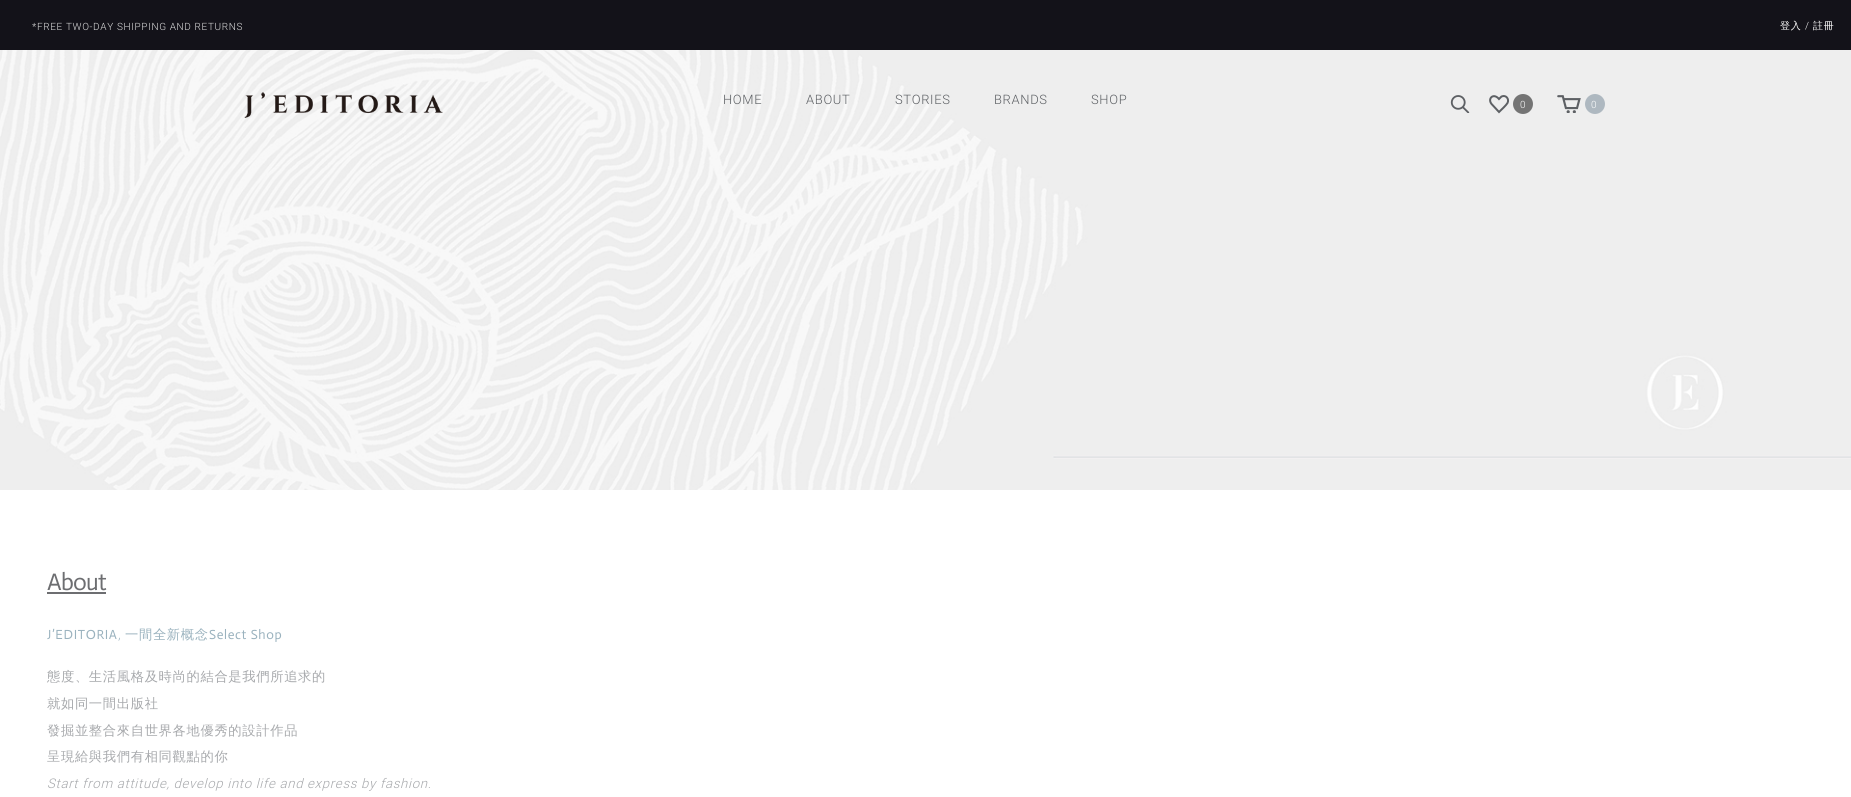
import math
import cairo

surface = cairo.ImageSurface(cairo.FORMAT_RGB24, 1851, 797)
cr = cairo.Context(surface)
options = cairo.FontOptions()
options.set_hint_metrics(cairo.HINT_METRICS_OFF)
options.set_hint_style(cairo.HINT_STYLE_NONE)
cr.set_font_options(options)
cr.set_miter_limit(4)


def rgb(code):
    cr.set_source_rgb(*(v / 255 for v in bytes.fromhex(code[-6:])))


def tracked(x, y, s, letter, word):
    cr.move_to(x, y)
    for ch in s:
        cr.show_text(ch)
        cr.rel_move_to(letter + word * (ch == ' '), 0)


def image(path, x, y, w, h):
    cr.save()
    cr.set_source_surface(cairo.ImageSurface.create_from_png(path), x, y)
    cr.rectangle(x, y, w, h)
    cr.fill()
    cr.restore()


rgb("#ffffff")
cr.paint()
rgb("#131219")
cr.rectangle(0, 0, 1851, 50)
cr.fill()
image("img/1.png", 0, 50, 1851, 440)
image("img/2.png", 244, 92, 199, 26)
image("img/3.png", 1450, 95, 20, 18)
cr.new_path()
cr.move_to(1492.5, 105)
cr.curve_to(1486.5, 99.5, 1493, 92, 1499, 99)
cr.line_to(1501.5, 96.5)
cr.curve_to(1506, 94.5, 1509.5, 99, 1507.5, 103)
cr.curve_to(1506, 105.5, 1501.5, 109.5, 1499, 112)
cr.close_path()
rgb("#5d6064")
cr.stroke()
rgb("#747474")
cr.arc(1523, 104, 10, 0, 2 * math.pi)
cr.fill()
image("img/4.png", 1557, 95, 24, 18)
rgb("#aeb8c0")
cr.arc(1595, 104, 10, 0, 2 * math.pi)
cr.fill()
rgb("#6d6e71")
cr.rectangle(47, 592, 59, 2)
cr.fill()
cr.select_font_face("Roboto Light")
cr.set_font_size(10)
rgb("#dedede")
tracked(32, 30, "*FREE TWO-DAY SHIPPING AND RETURNS", 0.65, 0)
cr.select_font_face("WenQuanYi Zen Hei Medium")
rgb("#ffffff")
tracked(1780, 29, "登入", 0.65, 0)
cr.select_font_face("Roboto Light")
tracked(1805, 29, "/", 0.65, 0)
cr.select_font_face("WenQuanYi Zen Hei Medium")
tracked(1813, 29, "註冊", 0.65, 0)
cr.select_font_face("Roboto Light")
cr.set_font_size(13)
rgb("#5d6064")
for x, y, s in [
    (723, 104, "HOME"),
    (806, 104, "ABOUT"),
    (895, 104, "STORIES"),
    (994, 104, "BRANDS"),
    (1091, 104, "SHOP"),
]:
    tracked(x, y, s, 0.65, 0)
cr.set_font_size(10)
rgb("#ffffff")
tracked(1520, 108, "0", 0.65, 0)
tracked(1591, 108, "0", 0.65, 0)
cr.select_font_face("Actor")
cr.set_font_size(24)
rgb("#6d6e71")
tracked(47, 590, "About", -0.75, 0)
cr.set_font_size(13.3)
rgb("#9ab2be")
tracked(47, 639, "J’EDITORIA", 0.65, 0)
cr.select_font_face("Roboto Light")
tracked(118, 639, ",", 0.65, 0)
cr.select_font_face("WenQuanYi Zen Hei Medium")
tracked(125, 639, "一間全新概念", 0.65, 0)
cr.select_font_face("Actor")
tracked(209, 639, "Select Shop", 0.65, 0)
cr.select_font_face("WenQuanYi Zen Hei Medium")
rgb("#a7a9ac")
for x, y, s in [
    (47, 681, "態度、生活風格及時尚的結合是我們所追求的"),
    (47, 708, "就如同一間出版社"),
    (47, 735, "發掘並整合來自世界各地優秀的設計作品"),
    (47, 761, "呈現給與我們有相同觀點的你"),
]:
    tracked(x, y, s, 0.65, 0)
cr.select_font_face("Roboto Light", cairo.FONT_SLANT_ITALIC)
tracked(47, 788, "Start from attitude, develop into life and express by fashion.", 0.65, 0)
surface.write_to_png("page.png")
